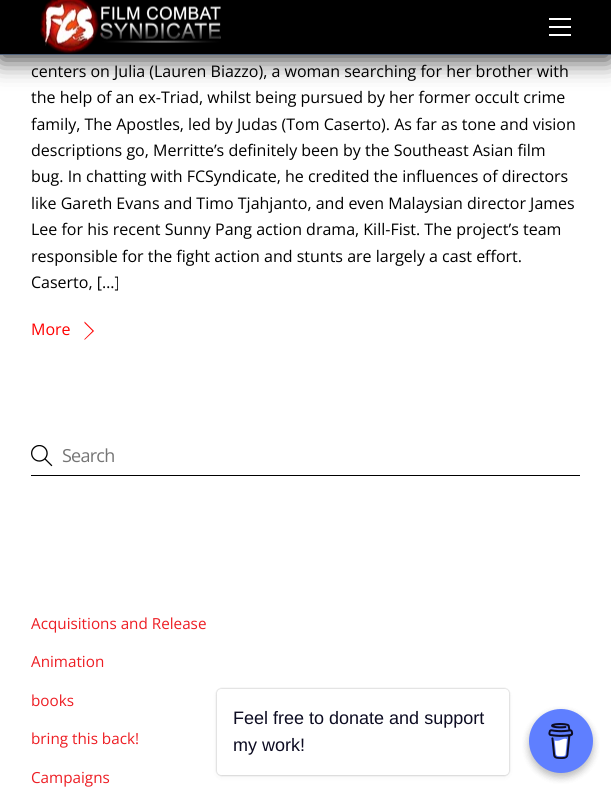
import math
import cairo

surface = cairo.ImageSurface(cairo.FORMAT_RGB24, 611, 791)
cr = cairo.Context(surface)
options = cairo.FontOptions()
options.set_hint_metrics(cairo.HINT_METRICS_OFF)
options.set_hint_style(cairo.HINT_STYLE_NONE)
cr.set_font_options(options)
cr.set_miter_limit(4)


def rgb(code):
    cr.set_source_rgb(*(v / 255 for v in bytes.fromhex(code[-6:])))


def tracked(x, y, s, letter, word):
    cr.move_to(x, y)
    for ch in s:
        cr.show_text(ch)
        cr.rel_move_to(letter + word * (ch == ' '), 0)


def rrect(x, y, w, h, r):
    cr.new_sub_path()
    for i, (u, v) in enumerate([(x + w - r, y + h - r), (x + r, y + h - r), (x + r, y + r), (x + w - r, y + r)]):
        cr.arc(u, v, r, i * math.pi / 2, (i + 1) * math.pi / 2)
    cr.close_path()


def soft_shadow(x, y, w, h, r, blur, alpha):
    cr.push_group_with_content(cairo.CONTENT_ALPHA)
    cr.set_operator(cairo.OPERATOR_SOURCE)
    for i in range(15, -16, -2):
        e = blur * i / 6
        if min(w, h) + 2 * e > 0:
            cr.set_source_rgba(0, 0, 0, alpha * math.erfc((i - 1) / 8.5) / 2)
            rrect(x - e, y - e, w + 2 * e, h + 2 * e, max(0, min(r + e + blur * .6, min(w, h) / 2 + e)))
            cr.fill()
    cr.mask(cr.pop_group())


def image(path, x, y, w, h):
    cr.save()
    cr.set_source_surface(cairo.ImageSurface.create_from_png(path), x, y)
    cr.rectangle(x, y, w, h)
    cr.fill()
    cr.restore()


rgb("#ffffff")
cr.paint()
rgb("#000000")
soft_shadow(0, 5, 611, 55, 0, 12.5, 0.75)
rgb("#000000")
cr.rectangle(0, 0, 611, 54)
cr.fill()
rgb("#4e5f78")
cr.rectangle(0, 54, 611, 1)
cr.fill()
image("img/1.png", 40, 0, 181, 54)
for x, y, w, h, color in [
    (549, 34, 22, 2, "#ffffff"),
    (549, 18, 22, 2, "#ffffff"),
    (549, 26, 22, 2, "#ffffff"),
]:
    rgb(color)
    cr.rectangle(x, y, w, h)
    cr.fill()
rgb("#ff0000")
cr.new_path()
cr.move_to(84.5, 321.5)
cr.line_to(94, 331)
cr.line_to(92.5, 331)
cr.line_to(84.5, 323)
cr.close_path()
cr.move_to(94, 331)
cr.line_to(84.5, 340)
cr.line_to(84.5, 339)
cr.line_to(92.5, 331)
cr.close_path()
cr.fill()
rgb("#000000")
cr.rectangle(31, 475, 549, 1)
cr.fill()
image("img/2.png", 31, 445, 22, 22)
rgb("#000000")
soft_shadow(217, 689, 292, 86, 4, 1, 0.15)
soft_shadow(217, 691, 292, 86, 4, 2.5, 0.05)
soft_shadow(529, 713, 64, 64, 32, 4, 0.15)
soft_shadow(217, 689, 292, 86, 4, 1, 0.15)
rgb("#ffffff")
rrect(217, 689, 292, 86, 4)
cr.fill()
rgb("#000000")
soft_shadow(529, 713, 64, 64, 32, 4, 0.15)
rgb("#5f7fff")
cr.arc(561, 741, 32, 0, 2 * math.pi)
cr.fill()
image("img/3.png", 548, 723, 26, 36)
cr.select_font_face("Open Sans")
cr.set_font_size(16)
rgb("#000000")
for x, y, s in [
    (31, 77, "centers on Julia (Lauren Biazzo), a woman searching for her brother with"),
    (31, 103, "the help of an ex-Triad, whilst being pursued by her former occult crime"),
    (31, 130, "family, The Apostles, led by Judas (Tom Caserto). As far as tone and vision"),
    (31, 156, "descriptions go, Merritte’s definitely been by the Southeast Asian film"),
    (31, 182, "bug. In chatting with FCSyndicate, he credited the influences of directors"),
    (31, 209, "like Gareth Evans and Timo Tjahjanto, and even Malaysian director James"),
    (31, 235, "Lee for his recent Sunny Pang action drama, Kill-Fist. The project’s team"),
    (31, 262, "responsible for the fight action and stunts are largely a cast effort."),
    (31, 288, "Caserto, […]"),
]:
    cr.move_to(x, y)
    cr.show_text(s)
rgb("#ff0000")
cr.move_to(31, 335)
cr.show_text("More")
cr.set_font_size(18)
rgb("#757575")
tracked(62, 462, "Search", -0.75, 0)
cr.set_font_size(15.25)
rgb("#ed1e24")
for x, y, s in [
    (31, 629, "Acquisitions and Release"),
    (31, 667, "Animation"),
    (31, 706, "books"),
    (31, 744, "bring this back!"),
    (31, 783, "Campaigns"),
]:
    cr.move_to(x, y)
    cr.show_text(s)
cr.select_font_face("Liberation Sans")
cr.set_font_size(18)
rgb("#0d0c22")
cr.move_to(233, 724)
cr.show_text("Feel free to donate and support")
cr.move_to(233, 751)
cr.show_text("my work!")
surface.write_to_png("page.png")
